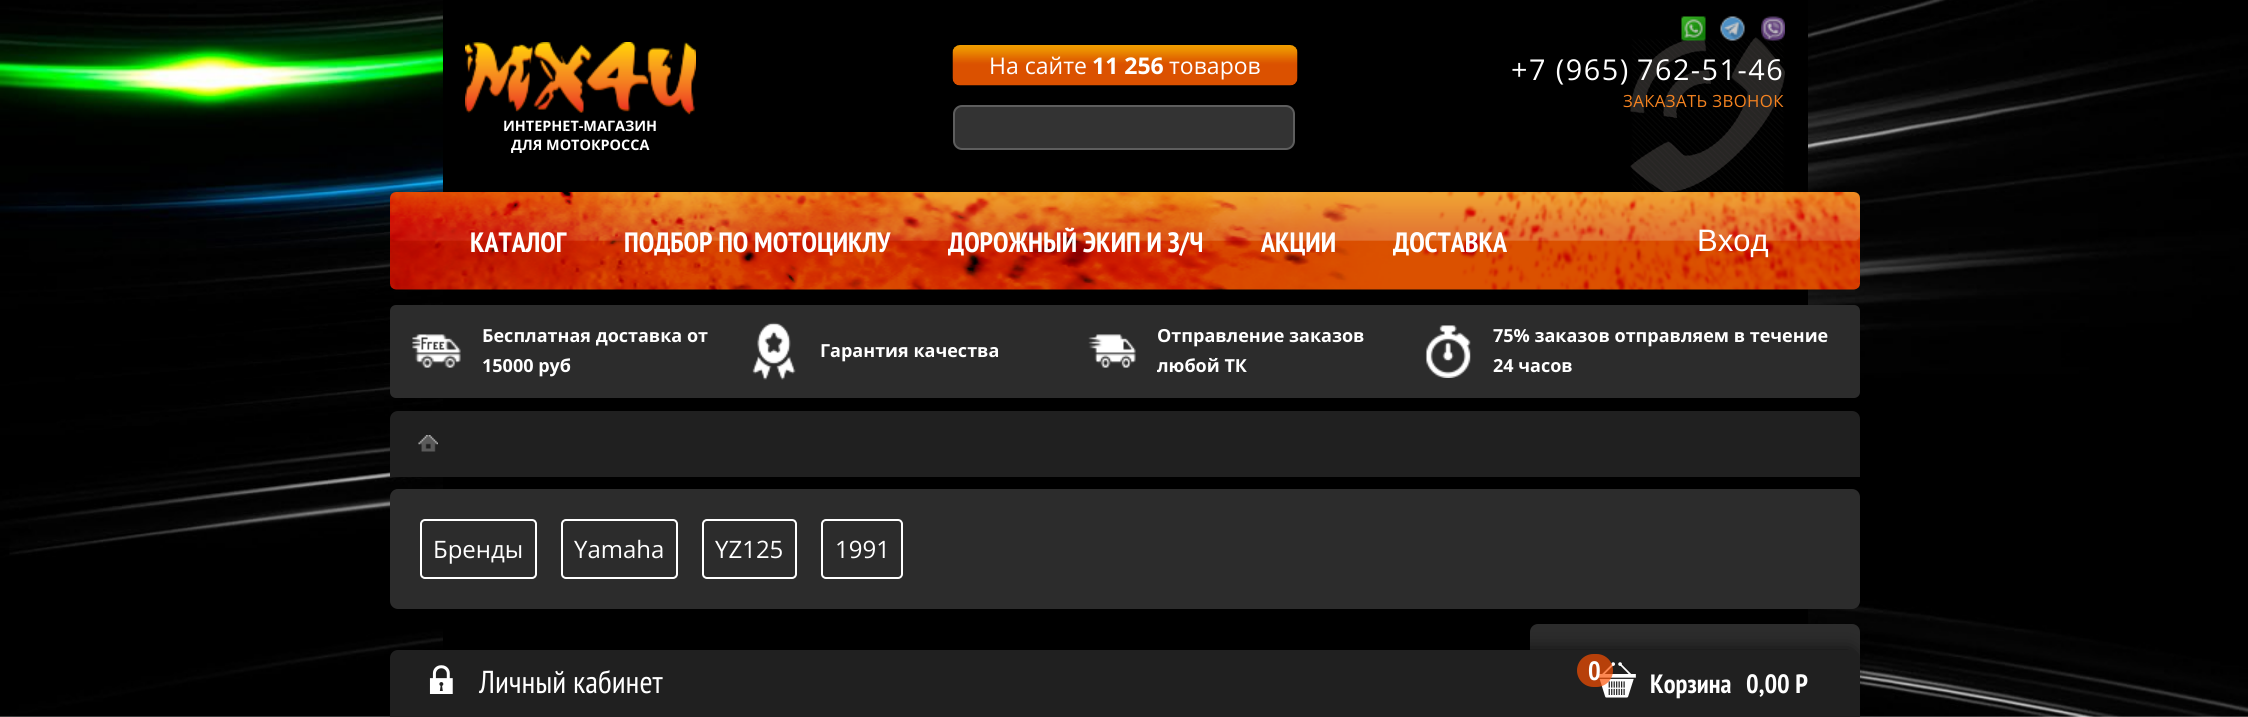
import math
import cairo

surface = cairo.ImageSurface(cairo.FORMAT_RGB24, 2248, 717)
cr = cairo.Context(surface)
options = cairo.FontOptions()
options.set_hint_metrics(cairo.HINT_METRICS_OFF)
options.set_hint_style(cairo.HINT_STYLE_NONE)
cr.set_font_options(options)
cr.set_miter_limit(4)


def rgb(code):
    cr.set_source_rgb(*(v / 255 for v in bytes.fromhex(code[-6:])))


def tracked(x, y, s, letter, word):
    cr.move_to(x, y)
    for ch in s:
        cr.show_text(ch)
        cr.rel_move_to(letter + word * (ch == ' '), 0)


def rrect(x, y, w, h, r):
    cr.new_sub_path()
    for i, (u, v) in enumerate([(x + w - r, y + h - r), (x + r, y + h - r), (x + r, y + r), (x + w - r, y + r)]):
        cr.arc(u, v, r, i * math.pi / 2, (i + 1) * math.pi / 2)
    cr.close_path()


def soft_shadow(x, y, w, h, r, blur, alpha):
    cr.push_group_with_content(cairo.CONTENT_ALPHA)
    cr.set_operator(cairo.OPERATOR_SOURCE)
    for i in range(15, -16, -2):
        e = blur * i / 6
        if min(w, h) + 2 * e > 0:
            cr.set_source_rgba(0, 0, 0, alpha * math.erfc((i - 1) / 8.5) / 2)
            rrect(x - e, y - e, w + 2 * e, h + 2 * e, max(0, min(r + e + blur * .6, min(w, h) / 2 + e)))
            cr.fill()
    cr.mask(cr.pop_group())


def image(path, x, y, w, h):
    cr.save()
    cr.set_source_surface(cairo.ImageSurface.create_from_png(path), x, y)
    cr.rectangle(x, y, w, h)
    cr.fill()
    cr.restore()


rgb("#ffffff")
cr.paint()
image("img/1.png", 0, 0, 2248, 717)
rgb("#000000")
cr.rectangle(443, 0, 1365, 650)
cr.fill()
image("img/2.png", 952, 45, 346, 41)
image("img/3.png", 1630, 37, 155, 155)
image("img/4.png", 1681, 16, 25, 25)
image("img/5.png", 1720, 16, 25, 25)
image("img/6.png", 1761, 16, 24, 25)
image("img/7.png", 465, 42, 231, 73)
rgb("#333333")
rrect(954, 106, 340, 43, 8)
cr.fill_preserve()
rgb("#5e5e5e")
cr.stroke()
image("img/8.png", 390, 192, 1470, 98)
rgb("#2c2c2c")
rrect(390, 305, 1470, 93, 6)
cr.fill()
image("img/9.png", 412, 334, 49, 34)
image("img/10.png", 752, 322, 44, 58)
image("img/11.png", 1088, 334, 48, 34)
image("img/12.png", 1425, 325, 46, 53)
rgb("#202020")
cr.new_path()
cr.move_to(398, 411)
cr.line_to(1852, 411)
cr.curve_to(1856.5, 411, 1860, 414.5, 1860, 419)
cr.line_to(1860, 477)
cr.line_to(390, 477)
cr.line_to(390, 419)
cr.curve_to(390, 414.5, 393.5, 411, 398, 411)
cr.close_path()
cr.fill()
image("img/13.png", 418, 435, 20, 17)
rgb("#2c2c2c")
rrect(390, 489, 1470, 120, 8)
cr.fill()
rrect(421, 520, 115, 58, 4)
rgb("#ffffff")
cr.stroke()
rrect(562, 520, 115, 58, 4)
cr.stroke()
rrect(703, 520, 93, 58, 4)
cr.stroke()
rrect(822, 520, 80, 58, 4)
cr.stroke()
rgb("#2c2c2c")
rrect(1530, 624, 330, 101, 8)
cr.fill()
rgb("#000000")
soft_shadow(399, 654, 1452, 50, 0, 10, 1)
rgb("#202020")
cr.new_path()
cr.move_to(398, 650)
cr.line_to(1852, 650)
cr.curve_to(1856.5, 650, 1860, 653.5, 1860, 658)
cr.line_to(1860, 717)
cr.line_to(390, 717)
cr.line_to(390, 658)
cr.curve_to(390, 653.5, 393.5, 650, 398, 650)
cr.close_path()
cr.fill()
image("img/14.png", 429, 665, 24, 29)
image("img/15.png", 1597, 662, 39, 36)
cr.set_source_rgba(0.996, 0.314, 0, 0.68)
rrect(1577, 654, 36, 33, 16.5)
cr.fill()
cr.select_font_face("Open Sans")
cr.set_font_size(23)
rgb("#ffffff")
cr.move_to(989, 74)
cr.show_text("На сайте")
cr.select_font_face("Open Sans", cairo.FONT_SLANT_NORMAL, cairo.FONT_WEIGHT_BOLD)
cr.move_to(1092, 74)
cr.show_text("11 256")
cr.select_font_face("Open Sans")
cr.move_to(1169, 74)
cr.show_text("товаров")
cr.set_font_size(28.75)
tracked(1511, 80, "+7 (965)", 1.5, 0)
tracked(1637, 80, "762-51-46", 1.5, 0)
cr.set_font_size(16.75)
rgb("#f58320")
tracked(1623, 107, "ЗАКАЗАТЬ ЗВОНОК", 0.4, 0)
cr.select_font_face("Open Sans", cairo.FONT_SLANT_NORMAL, cairo.FONT_WEIGHT_BOLD)
cr.set_font_size(14.4)
rgb("#ffffff")
cr.move_to(503, 131)
cr.show_text("ИНТЕРНЕТ-МАГАЗИН")
cr.move_to(511, 150)
cr.show_text("ДЛЯ МОТОКРОССА")
cr.select_font_face("PT Sans Narrow", cairo.FONT_SLANT_NORMAL, cairo.FONT_WEIGHT_BOLD)
cr.set_font_size(28)
for x, y, s in [
    (470, 252, "КАТАЛОГ"),
    (624, 252, "ПОДБОР ПО МОТОЦИКЛУ"),
    (948, 252, "ДОРОЖНЫЙ ЭКИП И З/Ч"),
    (1261, 252, "АКЦИИ"),
    (1393, 252, "ДОСТАВКА"),
]:
    cr.move_to(x, y)
    cr.show_text(s)
cr.select_font_face("Liberation Sans")
cr.set_font_size(31)
cr.move_to(1697, 251)
cr.show_text("Вход")
cr.select_font_face("Open Sans", cairo.FONT_SLANT_NORMAL, cairo.FONT_WEIGHT_BOLD)
cr.set_font_size(18)
for x, y, s in [
    (482, 342, "Бесплатная доставка от"),
    (482, 372, "15000 руб"),
    (820, 357, "Гарантия качества"),
    (1157, 342, "Отправление заказов"),
    (1157, 372, "любой ТК"),
    (1493, 342, "75% заказов отправляем в течение"),
    (1493, 372, "24 часов"),
]:
    cr.move_to(x, y)
    cr.show_text(s)
cr.select_font_face("Open Sans")
cr.set_font_size(24)
for x, y, s in [
    (433, 558, "Бренды"),
    (574, 558, "Yamaha"),
    (715, 558, "YZ125"),
    (835, 558, "1991"),
]:
    cr.move_to(x, y)
    cr.show_text(s)
cr.select_font_face("PT Sans Narrow")
cr.set_font_size(31.75)
cr.move_to(479, 693)
cr.show_text("Личный кабинет")
cr.select_font_face("PT Sans Narrow", cairo.FONT_SLANT_NORMAL, cairo.FONT_WEIGHT_BOLD)
cr.set_font_size(26.5)
for x, y, s in [
    (1588, 680, "0"),
    (1650, 693, "Корзина"),
    (1746, 693, "0,00 Р"),
]:
    cr.move_to(x, y)
    cr.show_text(s)
surface.write_to_png("page.png")
